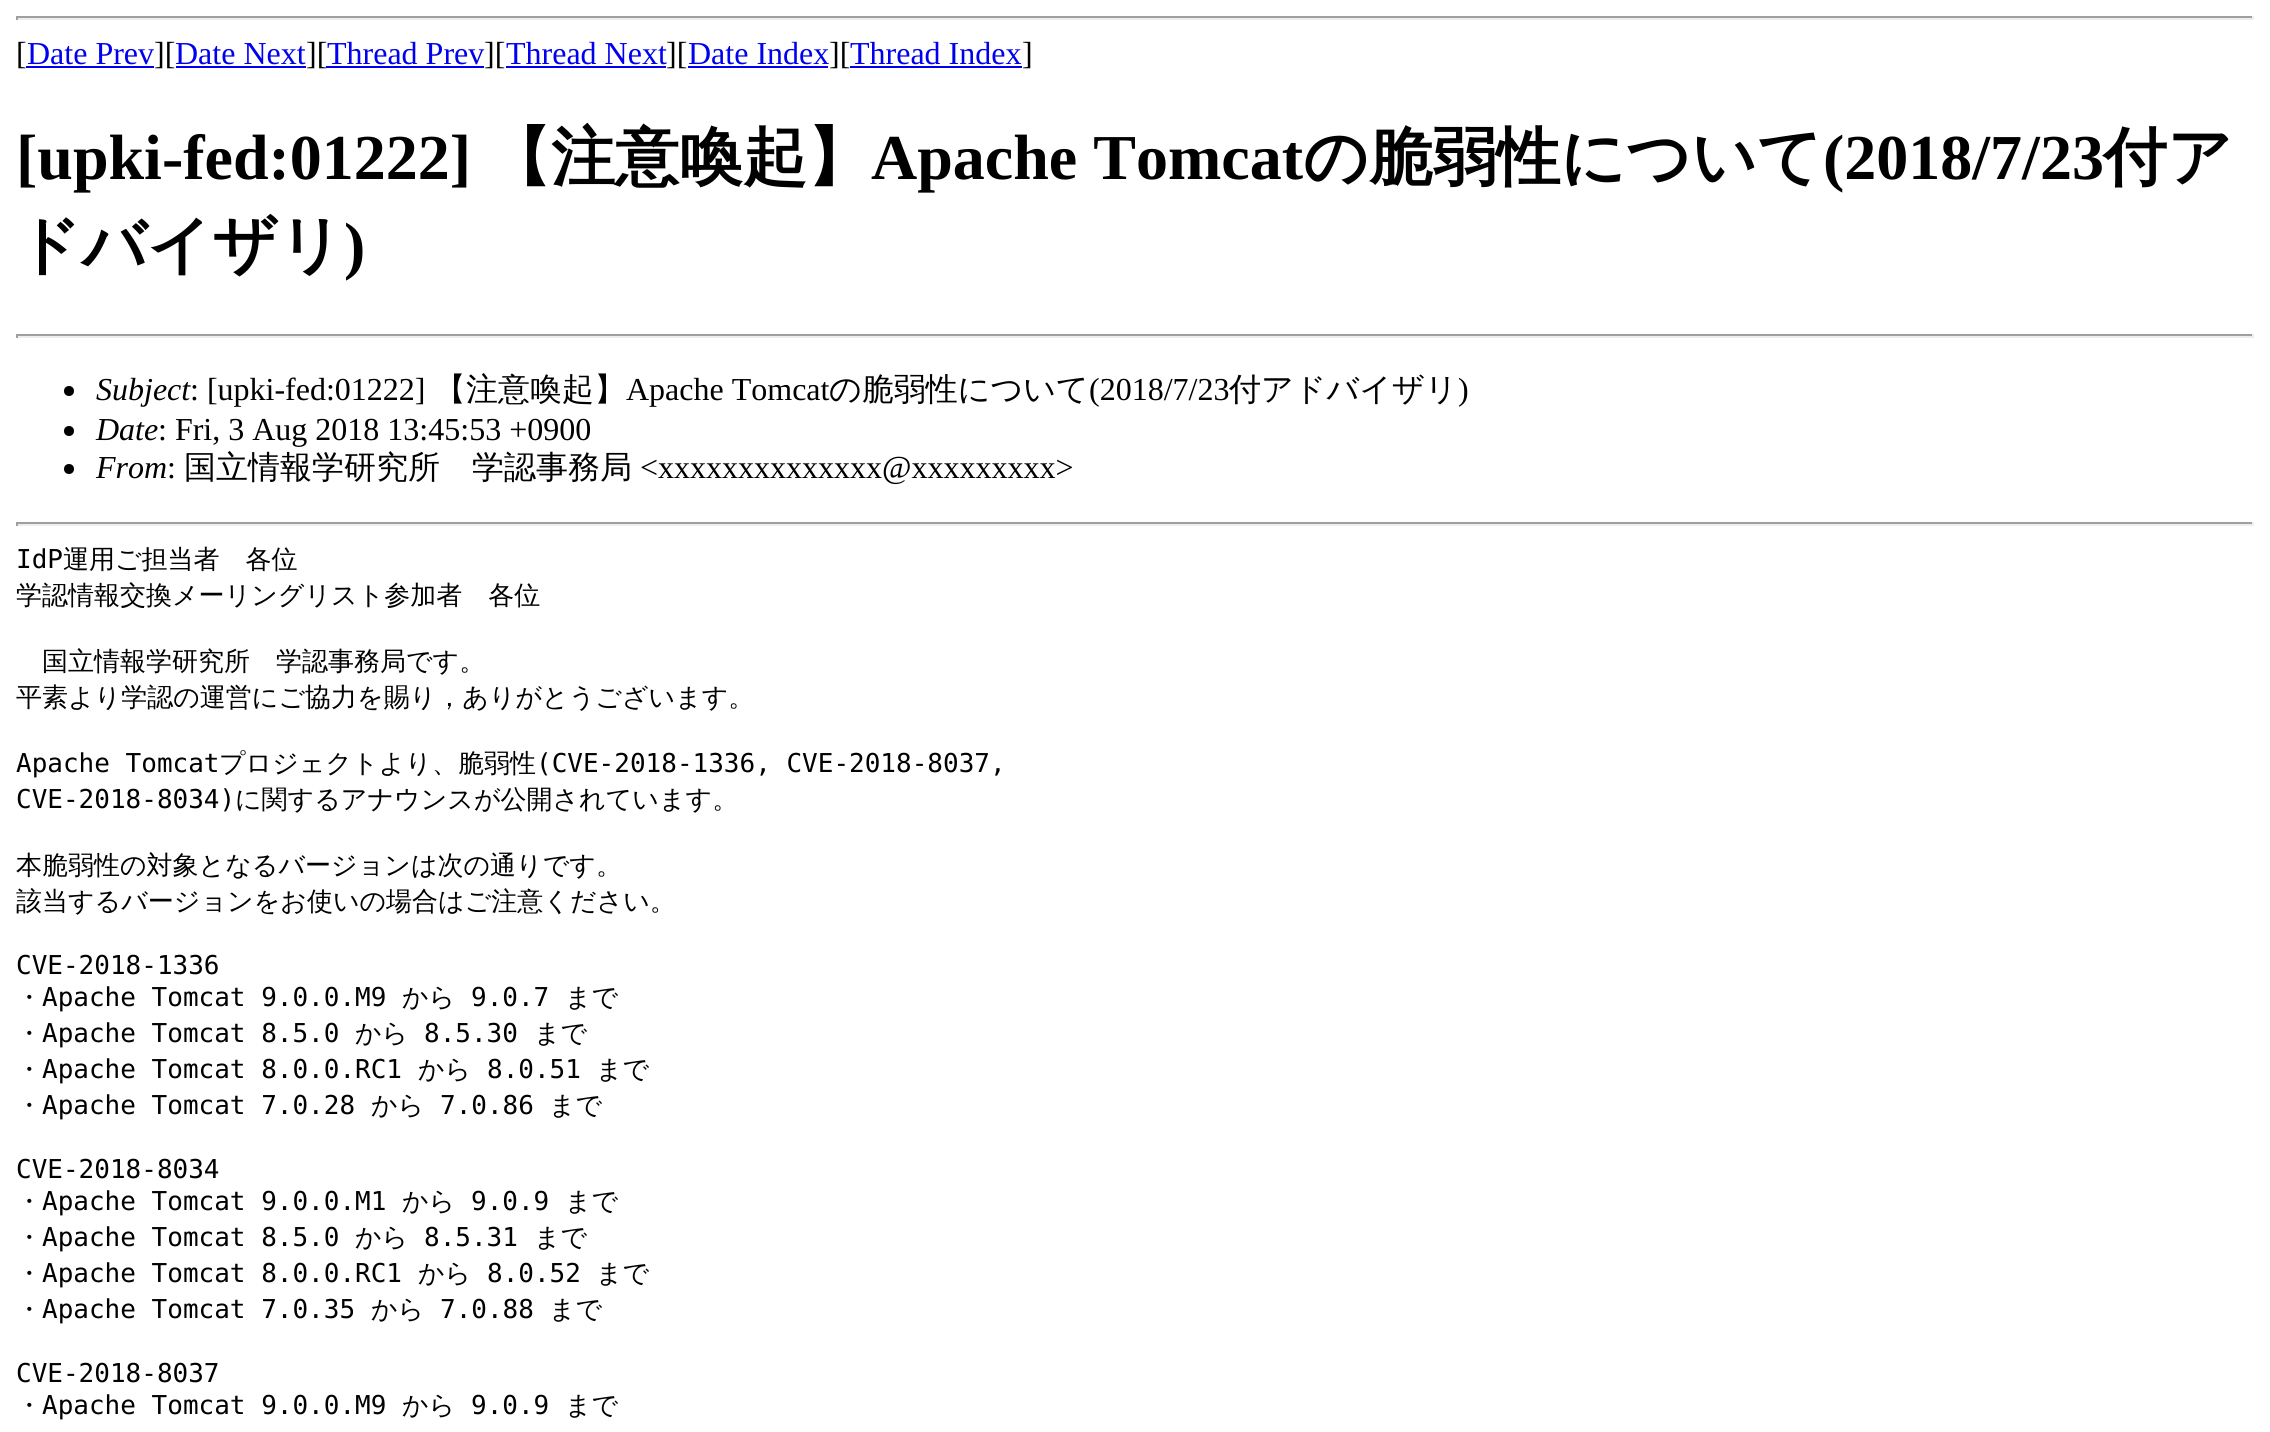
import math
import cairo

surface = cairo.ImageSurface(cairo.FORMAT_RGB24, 2270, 1432)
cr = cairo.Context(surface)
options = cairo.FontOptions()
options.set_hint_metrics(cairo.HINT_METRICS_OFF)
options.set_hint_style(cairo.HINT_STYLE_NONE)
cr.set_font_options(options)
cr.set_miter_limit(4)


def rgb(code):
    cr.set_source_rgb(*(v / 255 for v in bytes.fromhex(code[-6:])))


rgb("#ffffff")
cr.paint()
for x, y, w, h, color in [
    (16, 16, 2238, 2, "#9f9f9f"),
    (2252, 16, 2, 4, "#eeeeee"),
    (16, 18, 2238, 2, "#eeeeee"),
    (16, 16, 2, 4, "#9f9f9f"),
    (26, 66, 128, 2, "#0000ee"),
    (176, 66, 130, 2, "#0000ee"),
    (326, 66, 158, 2, "#0000ee"),
    (506, 66, 160, 2, "#0000ee"),
    (688, 66, 140, 2, "#0000ee"),
    (850, 66, 172, 2, "#0000ee"),
    (16, 334, 2238, 2, "#9f9f9f"),
    (2252, 334, 2, 4, "#eeeeee"),
    (16, 336, 2238, 2, "#eeeeee"),
    (16, 334, 2, 4, "#9f9f9f"),
]:
    rgb(color)
    cr.rectangle(x, y, w, h)
    cr.fill()
rgb("#000000")
cr.arc(69, 391, 5, 0, 2 * math.pi)
cr.fill()
cr.arc(69, 431, 5, 0, 2 * math.pi)
cr.fill()
cr.arc(69, 469, 5, 0, 2 * math.pi)
cr.fill()
for x, y, w, h, color in [
    (16, 522, 2238, 2, "#9f9f9f"),
    (2252, 522, 2, 4, "#eeeeee"),
    (16, 524, 2238, 2, "#eeeeee"),
    (16, 522, 2, 4, "#9f9f9f"),
]:
    rgb(color)
    cr.rectangle(x, y, w, h)
    cr.fill()
cr.select_font_face("Liberation Serif")
cr.set_font_size(32)
rgb("#000000")
cr.move_to(16, 64)
cr.show_text("[")
rgb("#0000ee")
cr.move_to(27, 64)
cr.show_text("Date Prev")
rgb("#000000")
cr.move_to(154, 64)
cr.show_text("][")
rgb("#0000ee")
cr.move_to(175, 64)
cr.show_text("Date Next")
rgb("#000000")
cr.move_to(306, 64)
cr.show_text("][")
rgb("#0000ee")
cr.move_to(327, 64)
cr.show_text("Thread Prev")
rgb("#000000")
cr.move_to(484, 64)
cr.show_text("][")
rgb("#0000ee")
cr.move_to(506, 64)
cr.show_text("Thread Next")
rgb("#000000")
cr.move_to(666, 64)
cr.show_text("][")
rgb("#0000ee")
cr.move_to(688, 64)
cr.show_text("Date Index")
rgb("#000000")
cr.move_to(829, 64)
cr.show_text("][")
rgb("#0000ee")
cr.move_to(850, 64)
cr.show_text("Thread Index")
rgb("#000000")
cr.move_to(1022, 64)
cr.show_text("]")
cr.select_font_face("Liberation Serif", cairo.FONT_SLANT_NORMAL, cairo.FONT_WEIGHT_BOLD)
cr.set_font_size(64)
cr.move_to(16, 179)
cr.show_text("[upki-fed:01222]")
cr.select_font_face("WenQuanYi Zen Hei", cairo.FONT_SLANT_NORMAL, cairo.FONT_WEIGHT_BOLD)
cr.move_to(487, 179)
cr.show_text("【注意喚起】")
cr.select_font_face("Liberation Serif", cairo.FONT_SLANT_NORMAL, cairo.FONT_WEIGHT_BOLD)
cr.move_to(871, 179)
cr.show_text("Apache Tomcat")
cr.select_font_face("WenQuanYi Zen Hei", cairo.FONT_SLANT_NORMAL, cairo.FONT_WEIGHT_BOLD)
cr.move_to(1303, 179)
cr.show_text("の脆弱性について")
cr.select_font_face("Liberation Serif", cairo.FONT_SLANT_NORMAL, cairo.FONT_WEIGHT_BOLD)
cr.move_to(1823, 179)
cr.show_text("(2018/7/23")
cr.select_font_face("WenQuanYi Zen Hei", cairo.FONT_SLANT_NORMAL, cairo.FONT_WEIGHT_BOLD)
cr.move_to(2103, 179)
cr.show_text("付ア")
cr.move_to(16, 267)
cr.show_text("ドバイザリ")
cr.select_font_face("Liberation Serif", cairo.FONT_SLANT_NORMAL, cairo.FONT_WEIGHT_BOLD)
cr.move_to(344, 267)
cr.show_text(")")
cr.select_font_face("Liberation Serif", cairo.FONT_SLANT_ITALIC)
cr.set_font_size(32)
cr.move_to(96, 400)
cr.show_text("Subject")
cr.select_font_face("Liberation Serif")
cr.move_to(190, 400)
cr.show_text(": [upki-fed:01222]")
cr.select_font_face("WenQuanYi Zen Hei Medium")
cr.move_to(434, 400)
cr.show_text("【注意喚起】")
cr.select_font_face("Liberation Serif")
cr.move_to(626, 400)
cr.show_text("Apache Tomcat")
cr.select_font_face("WenQuanYi Zen Hei Medium")
cr.move_to(829, 400)
cr.show_text("の脆弱性について")
cr.select_font_face("Liberation Serif")
cr.move_to(1089, 400)
cr.show_text("(2018/7/23")
cr.select_font_face("WenQuanYi Zen Hei Medium")
cr.move_to(1229, 400)
cr.show_text("付アドバイザリ")
cr.select_font_face("Liberation Serif")
cr.move_to(1458, 400)
cr.show_text(")")
cr.select_font_face("Liberation Serif", cairo.FONT_SLANT_ITALIC)
cr.move_to(96, 440)
cr.show_text("Date")
cr.select_font_face("Liberation Serif")
cr.move_to(158, 440)
cr.show_text(": Fri, 3 Aug 2018 13:45:53 +0900")
cr.select_font_face("Liberation Serif", cairo.FONT_SLANT_ITALIC)
cr.move_to(96, 478)
cr.show_text("From")
cr.select_font_face("Liberation Serif")
cr.move_to(167, 478)
cr.show_text(":")
cr.select_font_face("WenQuanYi Zen Hei Medium")
cr.move_to(184, 478)
cr.show_text("国立情報学研究所　学認事務局")
cr.select_font_face("Liberation Serif")
cr.move_to(640, 478)
cr.show_text("<xxxxxxxxxxxxxx@xxxxxxxxx>")
cr.select_font_face("DejaVu Sans Mono")
cr.set_font_size(26)
cr.move_to(16, 568)
cr.show_text("IdP")
cr.select_font_face("WenQuanYi Zen Hei Medium")
for x, y, s in [
    (63, 568, "運用ご担当者　各位"),
    (16, 604, "学認情報交換メーリングリスト参加者　各位"),
    (42, 670, "国立情報学研究所　学認事務局です。"),
    (16, 706, "平素より学認の運営にご協力を賜り，ありがとうございます。"),
]:
    cr.move_to(x, y)
    cr.show_text(s)
cr.select_font_face("DejaVu Sans Mono")
cr.move_to(16, 772)
cr.show_text("Apache Tomcat")
cr.select_font_face("WenQuanYi Zen Hei Medium")
cr.move_to(219, 772)
cr.show_text("プロジェクトより、脆弱性")
cr.select_font_face("DejaVu Sans Mono")
cr.move_to(536, 772)
cr.show_text("(CVE-2018-1336, CVE-2018-8037,")
cr.move_to(16, 808)
cr.show_text("CVE-2018-8034)")
cr.select_font_face("WenQuanYi Zen Hei Medium")
for x, y, s in [
    (235, 808, "に関するアナウンスが公開されています。"),
    (16, 874, "本脆弱性の対象となるバージョンは次の通りです。"),
    (16, 910, "該当するバージョンをお使いの場合はご注意ください。"),
]:
    cr.move_to(x, y)
    cr.show_text(s)
cr.select_font_face("DejaVu Sans Mono")
cr.move_to(16, 974)
cr.show_text("CVE-2018-1336")
cr.select_font_face("WenQuanYi Zen Hei Medium")
cr.move_to(16, 1006)
cr.show_text("・")
cr.select_font_face("DejaVu Sans Mono")
cr.move_to(42, 1006)
cr.show_text("Apache Tomcat 9.0.0.M9")
cr.select_font_face("WenQuanYi Zen Hei Medium")
cr.move_to(402, 1006)
cr.show_text("から")
cr.select_font_face("DejaVu Sans Mono")
cr.move_to(471, 1006)
cr.show_text("9.0.7")
cr.select_font_face("WenQuanYi Zen Hei Medium")
cr.move_to(565, 1006)
cr.show_text("まで")
cr.move_to(16, 1042)
cr.show_text("・")
cr.select_font_face("DejaVu Sans Mono")
cr.move_to(42, 1042)
cr.show_text("Apache Tomcat 8.5.0")
cr.select_font_face("WenQuanYi Zen Hei Medium")
cr.move_to(355, 1042)
cr.show_text("から")
cr.select_font_face("DejaVu Sans Mono")
cr.move_to(424, 1042)
cr.show_text("8.5.30")
cr.select_font_face("WenQuanYi Zen Hei Medium")
cr.move_to(534, 1042)
cr.show_text("まで")
cr.move_to(16, 1078)
cr.show_text("・")
cr.select_font_face("DejaVu Sans Mono")
cr.move_to(42, 1078)
cr.show_text("Apache Tomcat 8.0.0.RC1")
cr.select_font_face("WenQuanYi Zen Hei Medium")
cr.move_to(418, 1078)
cr.show_text("から")
cr.select_font_face("DejaVu Sans Mono")
cr.move_to(487, 1078)
cr.show_text("8.0.51")
cr.select_font_face("WenQuanYi Zen Hei Medium")
cr.move_to(596, 1078)
cr.show_text("まで")
cr.move_to(16, 1114)
cr.show_text("・")
cr.select_font_face("DejaVu Sans Mono")
cr.move_to(42, 1114)
cr.show_text("Apache Tomcat 7.0.28")
cr.select_font_face("WenQuanYi Zen Hei Medium")
cr.move_to(371, 1114)
cr.show_text("から")
cr.select_font_face("DejaVu Sans Mono")
cr.move_to(440, 1114)
cr.show_text("7.0.86")
cr.select_font_face("WenQuanYi Zen Hei Medium")
cr.move_to(549, 1114)
cr.show_text("まで")
cr.select_font_face("DejaVu Sans Mono")
cr.move_to(16, 1178)
cr.show_text("CVE-2018-8034")
cr.select_font_face("WenQuanYi Zen Hei Medium")
cr.move_to(16, 1210)
cr.show_text("・")
cr.select_font_face("DejaVu Sans Mono")
cr.move_to(42, 1210)
cr.show_text("Apache Tomcat 9.0.0.M1")
cr.select_font_face("WenQuanYi Zen Hei Medium")
cr.move_to(402, 1210)
cr.show_text("から")
cr.select_font_face("DejaVu Sans Mono")
cr.move_to(471, 1210)
cr.show_text("9.0.9")
cr.select_font_face("WenQuanYi Zen Hei Medium")
cr.move_to(565, 1210)
cr.show_text("まで")
cr.move_to(16, 1246)
cr.show_text("・")
cr.select_font_face("DejaVu Sans Mono")
cr.move_to(42, 1246)
cr.show_text("Apache Tomcat 8.5.0")
cr.select_font_face("WenQuanYi Zen Hei Medium")
cr.move_to(355, 1246)
cr.show_text("から")
cr.select_font_face("DejaVu Sans Mono")
cr.move_to(424, 1246)
cr.show_text("8.5.31")
cr.select_font_face("WenQuanYi Zen Hei Medium")
cr.move_to(534, 1246)
cr.show_text("まで")
cr.move_to(16, 1282)
cr.show_text("・")
cr.select_font_face("DejaVu Sans Mono")
cr.move_to(42, 1282)
cr.show_text("Apache Tomcat 8.0.0.RC1")
cr.select_font_face("WenQuanYi Zen Hei Medium")
cr.move_to(418, 1282)
cr.show_text("から")
cr.select_font_face("DejaVu Sans Mono")
cr.move_to(487, 1282)
cr.show_text("8.0.52")
cr.select_font_face("WenQuanYi Zen Hei Medium")
cr.move_to(596, 1282)
cr.show_text("まで")
cr.move_to(16, 1318)
cr.show_text("・")
cr.select_font_face("DejaVu Sans Mono")
cr.move_to(42, 1318)
cr.show_text("Apache Tomcat 7.0.35")
cr.select_font_face("WenQuanYi Zen Hei Medium")
cr.move_to(371, 1318)
cr.show_text("から")
cr.select_font_face("DejaVu Sans Mono")
cr.move_to(440, 1318)
cr.show_text("7.0.88")
cr.select_font_face("WenQuanYi Zen Hei Medium")
cr.move_to(549, 1318)
cr.show_text("まで")
cr.select_font_face("DejaVu Sans Mono")
cr.move_to(16, 1382)
cr.show_text("CVE-2018-8037")
cr.select_font_face("WenQuanYi Zen Hei Medium")
cr.move_to(16, 1414)
cr.show_text("・")
cr.select_font_face("DejaVu Sans Mono")
cr.move_to(42, 1414)
cr.show_text("Apache Tomcat 9.0.0.M9")
cr.select_font_face("WenQuanYi Zen Hei Medium")
cr.move_to(402, 1414)
cr.show_text("から")
cr.select_font_face("DejaVu Sans Mono")
cr.move_to(471, 1414)
cr.show_text("9.0.9")
cr.select_font_face("WenQuanYi Zen Hei Medium")
cr.move_to(565, 1414)
cr.show_text("まで")
surface.write_to_png("page.png")
